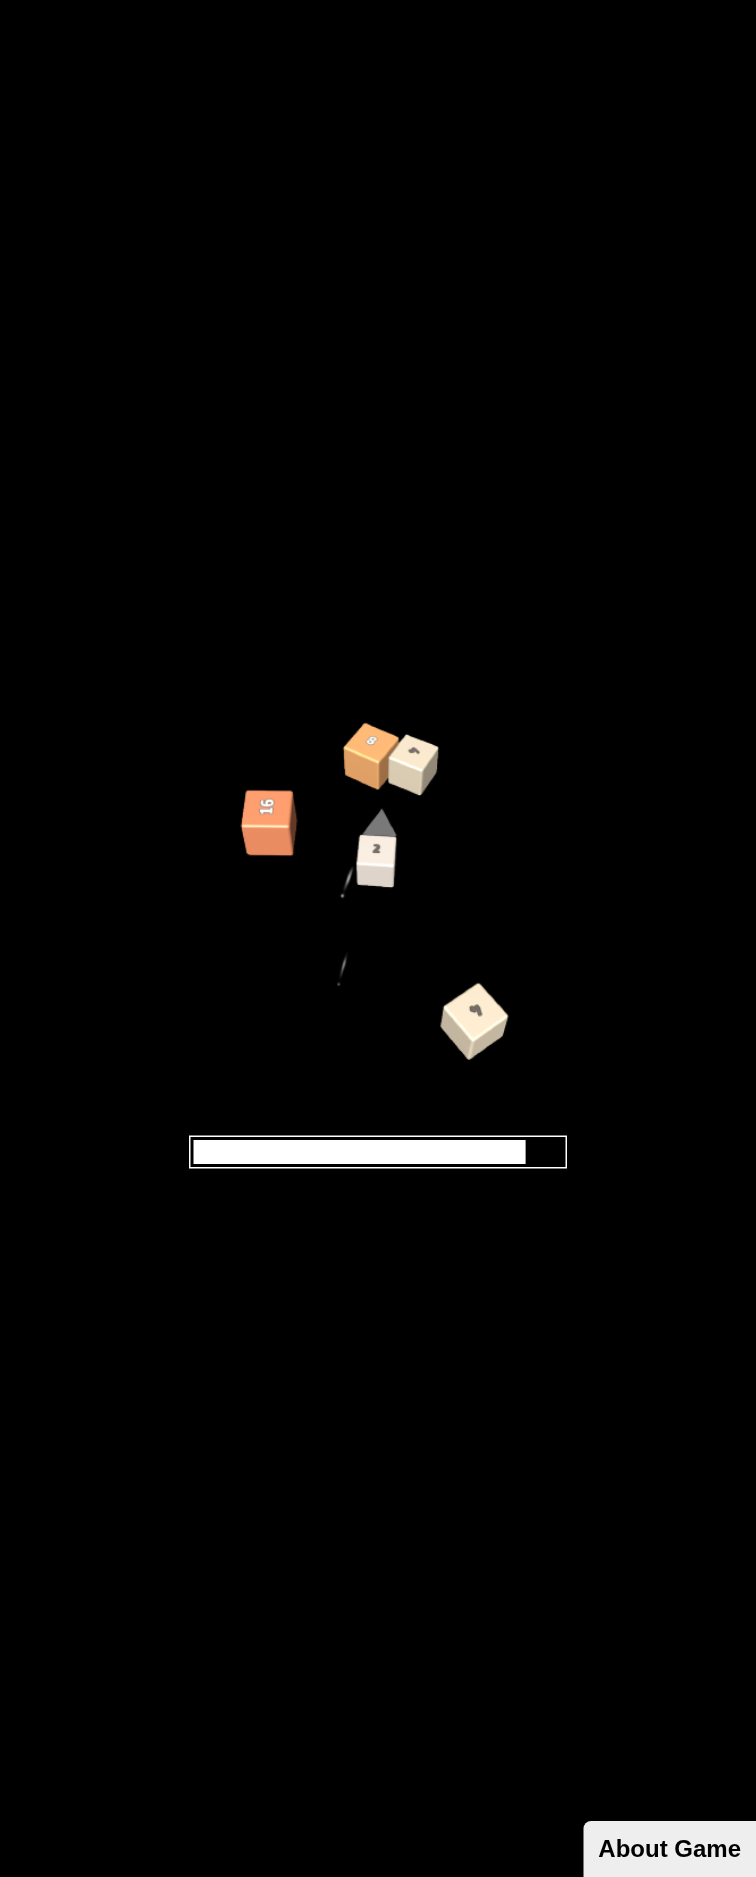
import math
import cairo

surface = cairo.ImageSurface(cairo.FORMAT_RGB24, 756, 1877)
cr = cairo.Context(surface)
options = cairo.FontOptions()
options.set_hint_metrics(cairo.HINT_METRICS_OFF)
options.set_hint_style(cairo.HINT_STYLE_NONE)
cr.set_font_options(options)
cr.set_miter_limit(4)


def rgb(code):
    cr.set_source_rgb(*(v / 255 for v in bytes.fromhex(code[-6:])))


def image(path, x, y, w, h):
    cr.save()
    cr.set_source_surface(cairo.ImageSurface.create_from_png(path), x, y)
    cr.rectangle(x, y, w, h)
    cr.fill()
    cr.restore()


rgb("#ffffff")
cr.paint()
image("img/1.png", 0, 0, 756, 1877)
surface.write_to_png("page.png")
